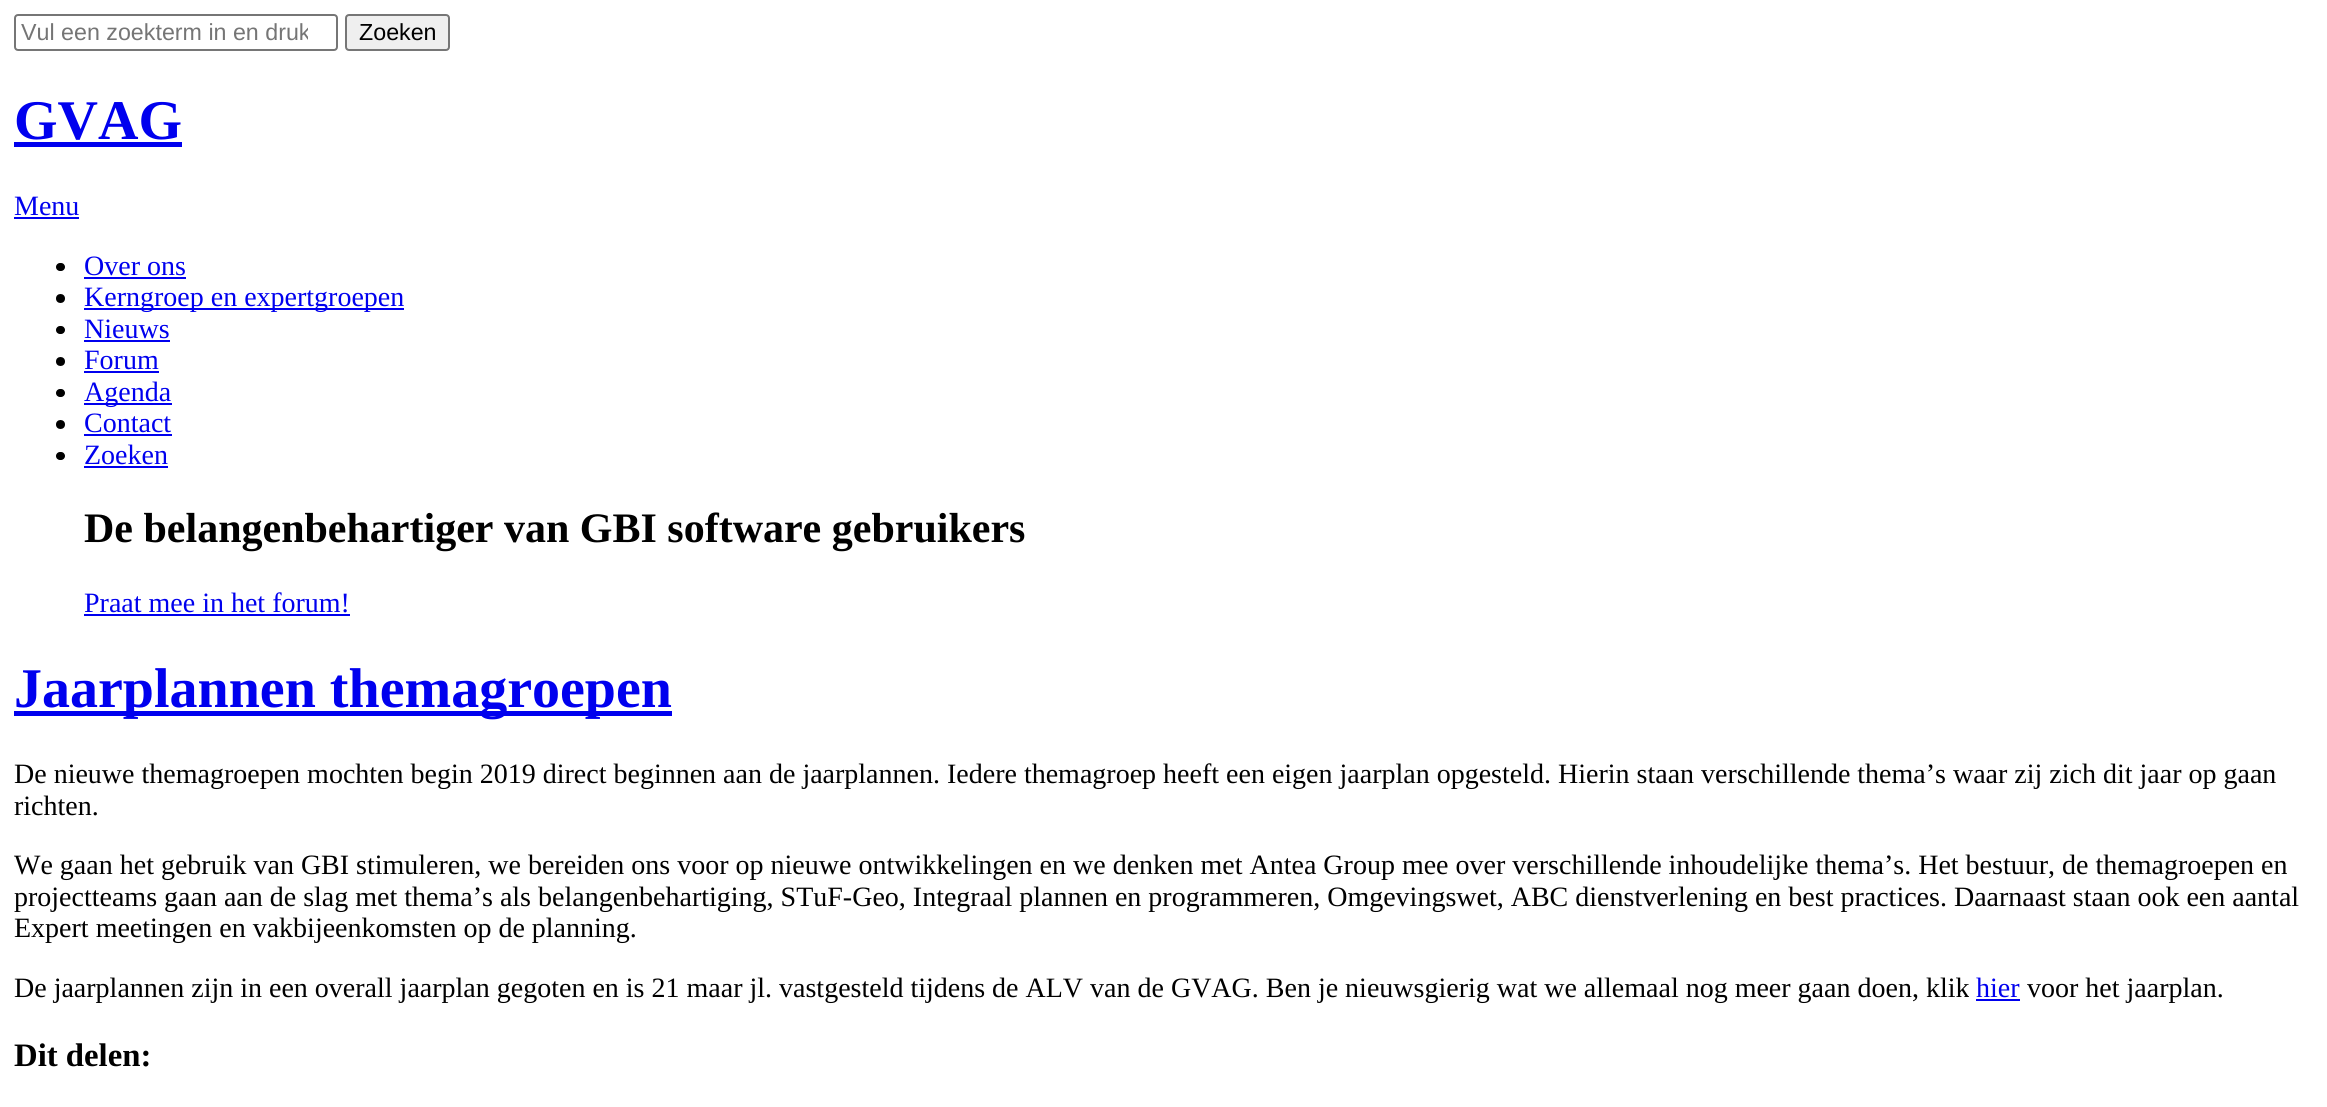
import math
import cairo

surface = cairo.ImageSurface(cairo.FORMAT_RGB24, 2327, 1107)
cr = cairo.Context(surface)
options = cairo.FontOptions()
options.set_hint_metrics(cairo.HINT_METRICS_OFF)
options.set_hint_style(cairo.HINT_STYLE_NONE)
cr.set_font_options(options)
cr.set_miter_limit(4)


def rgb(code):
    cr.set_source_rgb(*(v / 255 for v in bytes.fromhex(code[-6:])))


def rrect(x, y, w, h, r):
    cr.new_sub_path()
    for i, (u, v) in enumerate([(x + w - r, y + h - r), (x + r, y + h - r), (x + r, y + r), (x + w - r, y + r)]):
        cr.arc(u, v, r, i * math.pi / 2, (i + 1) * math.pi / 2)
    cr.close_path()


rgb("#ffffff")
cr.paint()
rrect(15, 15, 322, 35, 3)
rgb("#767676")
cr.stroke()
rgb("#efefef")
rrect(346, 15, 103, 35, 3)
cr.fill_preserve()
rgb("#767676")
cr.stroke()
rgb("#0000ee")
cr.rectangle(14, 142, 168, 5)
cr.fill()
cr.rectangle(14, 217, 65, 2)
cr.fill()
rgb("#000000")
rrect(56, 263, 9, 8, 4)
cr.fill()
rgb("#0000ee")
cr.rectangle(84, 277, 102, 2)
cr.fill()
rgb("#000000")
cr.arc(60.5, 298.5, 4.5, 0, 2 * math.pi)
cr.fill()
rgb("#0000ee")
cr.rectangle(84, 308, 320, 2)
cr.fill()
rgb("#000000")
rrect(56, 326, 9, 8, 4)
cr.fill()
rgb("#0000ee")
cr.rectangle(84, 340, 86, 2)
cr.fill()
rgb("#000000")
cr.arc(60.5, 361.5, 4.5, 0, 2 * math.pi)
cr.fill()
rgb("#0000ee")
cr.rectangle(84, 371, 75, 2)
cr.fill()
rgb("#000000")
rrect(56, 389, 9, 8, 4)
cr.fill()
rgb("#0000ee")
cr.rectangle(84, 403, 88, 2)
cr.fill()
rgb("#000000")
cr.arc(60.5, 424.5, 4.5, 0, 2 * math.pi)
cr.fill()
rgb("#0000ee")
cr.rectangle(84, 434, 88, 2)
cr.fill()
rgb("#000000")
rrect(56, 452, 9, 8, 4)
cr.fill()
for x, y, w, h, color in [
    (84, 466, 84, 2, "#0000ee"),
    (84, 614, 266, 2, "#0000ee"),
    (14, 711, 658, 5, "#0000ee"),
    (1976, 999, 44, 2, "#0000ee"),
]:
    rgb(color)
    cr.rectangle(x, y, w, h)
    cr.fill()
cr.save()
cr.rectangle(21, 19, 287, 27)
cr.clip()
cr.select_font_face("Liberation Sans")
cr.set_font_size(23.25)
rgb("#757575")
cr.move_to(21, 40)
cr.show_text("Vul een zoekterm in en druk")
cr.restore()
cr.select_font_face("Liberation Sans")
cr.set_font_size(23.25)
rgb("#000000")
cr.move_to(359, 40)
cr.show_text("Zoeken")
cr.select_font_face("Liberation Serif", cairo.FONT_SLANT_NORMAL, cairo.FONT_WEIGHT_BOLD)
cr.set_font_size(56)
rgb("#0000ee")
cr.move_to(14, 139)
cr.show_text("GVAG")
cr.select_font_face("Liberation Serif")
cr.set_font_size(28)
for x, y, s in [
    (14, 215, "Menu"),
    (84, 275, "Over ons"),
    (84, 306, "Kerngroep en expertgroepen"),
    (84, 338, "Nieuws"),
    (84, 369, "Forum"),
    (84, 401, "Agenda"),
    (84, 432, "Contact"),
    (84, 464, "Zoeken"),
]:
    cr.move_to(x, y)
    cr.show_text(s)
cr.select_font_face("Liberation Serif", cairo.FONT_SLANT_NORMAL, cairo.FONT_WEIGHT_BOLD)
cr.set_font_size(42)
rgb("#000000")
cr.move_to(84, 542)
cr.show_text("De belangenbehartiger van GBI software gebruikers")
cr.select_font_face("Liberation Serif")
cr.set_font_size(28)
rgb("#0000ee")
cr.move_to(84, 612)
cr.show_text("Praat mee in het forum!")
cr.select_font_face("Liberation Serif", cairo.FONT_SLANT_NORMAL, cairo.FONT_WEIGHT_BOLD)
cr.set_font_size(56)
cr.move_to(14, 707)
cr.show_text("Jaarplannen themagroepen")
cr.select_font_face("Liberation Serif")
cr.set_font_size(28)
rgb("#000000")
for x, y, s in [
    (14, 783, "De nieuwe themagroepen mochten begin 2019 direct beginnen aan de jaarplannen. Iedere themagroep heeft een eigen jaarplan opgesteld. Hierin staan verschillende thema’s waar zij zich dit jaar op gaan"),
    (14, 815, "richten."),
    (14, 874, "We gaan het gebruik van GBI stimuleren, we bereiden ons voor op nieuwe ontwikkelingen en we denken met Antea Group mee over verschillende inhoudelijke thema’s. Het bestuur, de themagroepen en"),
    (14, 906, "projectteams gaan aan de slag met thema’s als belangenbehartiging, STuF-Geo, Integraal plannen en programmeren, Omgevingswet, ABC dienstverlening en best practices. Daarnaast staan ook een aantal"),
    (14, 937, "Expert meetingen en vakbijeenkomsten op de planning."),
    (14, 997, "De jaarplannen zijn in een overall jaarplan gegoten en is 21 maar jl. vastgesteld tijdens de ALV van de GVAG. Ben je nieuwsgierig wat we allemaal nog meer gaan doen, klik"),
]:
    cr.move_to(x, y)
    cr.show_text(s)
rgb("#0000ee")
cr.move_to(1976, 997)
cr.show_text("hier")
rgb("#000000")
cr.move_to(2027, 997)
cr.show_text("voor het jaarplan.")
cr.select_font_face("Liberation Serif", cairo.FONT_SLANT_NORMAL, cairo.FONT_WEIGHT_BOLD)
cr.set_font_size(32.75)
cr.move_to(14, 1066)
cr.show_text("Dit delen:")
surface.write_to_png("page.png")
